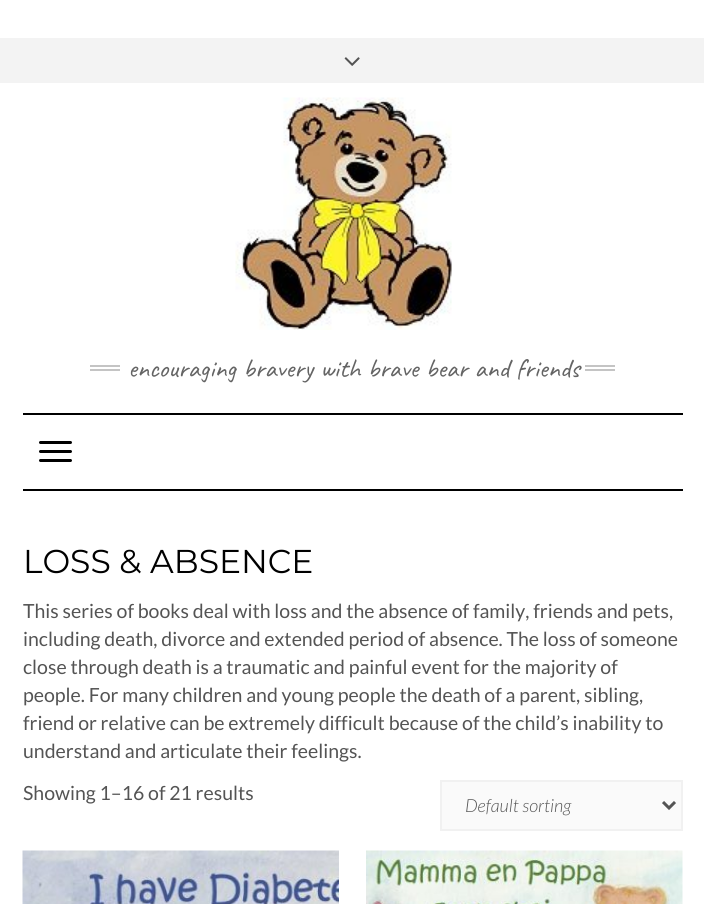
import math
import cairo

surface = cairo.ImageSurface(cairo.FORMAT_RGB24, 704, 904)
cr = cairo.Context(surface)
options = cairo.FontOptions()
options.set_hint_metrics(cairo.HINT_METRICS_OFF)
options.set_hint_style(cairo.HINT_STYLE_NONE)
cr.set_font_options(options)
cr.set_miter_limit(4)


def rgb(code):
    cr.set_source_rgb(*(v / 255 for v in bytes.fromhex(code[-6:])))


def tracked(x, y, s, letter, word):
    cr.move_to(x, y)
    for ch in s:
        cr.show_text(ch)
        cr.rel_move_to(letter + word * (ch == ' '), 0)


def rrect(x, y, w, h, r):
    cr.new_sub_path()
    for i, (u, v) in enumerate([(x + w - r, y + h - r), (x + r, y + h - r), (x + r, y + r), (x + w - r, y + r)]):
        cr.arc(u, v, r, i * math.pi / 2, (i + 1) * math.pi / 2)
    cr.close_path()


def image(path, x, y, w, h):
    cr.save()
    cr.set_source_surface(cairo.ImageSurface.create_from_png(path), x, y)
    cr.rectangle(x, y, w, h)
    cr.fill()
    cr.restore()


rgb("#ffffff")
cr.paint()
rgb("#f3f3f3")
cr.rectangle(0, 38, 704, 45)
cr.fill()
image("img/1.png", 344, 57, 16, 9)
image("img/2.png", 235, 97, 217, 233)
for x, y, w, h, color in [
    (90, 365, 30, 2, "#c4c4c4"),
    (90, 369, 30, 2, "#c4c4c4"),
    (585, 365, 30, 2, "#c4c4c4"),
    (585, 369, 30, 2, "#c4c4c4"),
    (23, 413, 660, 2, "#000000"),
    (23, 489, 660, 2, "#000000"),
]:
    rgb(color)
    cr.rectangle(x, y, w, h)
    cr.fill()
rrect(39, 441, 33, 3, 1.5)
cr.fill()
rrect(39, 450, 33, 3, 1.5)
cr.fill()
rrect(39, 459, 33, 3, 1.5)
cr.fill()
rgb("#fafafa")
cr.rectangle(441, 781, 241, 49)
cr.fill_preserve()
rgb("#f1f1f1")
cr.stroke()
cr.new_path()
cr.move_to(663, 802)
cr.line_to(669, 808)
cr.line_to(675, 802)
rgb("#545454")
cr.set_line_width(3)
cr.stroke()
image("img/3.png", 22, 850, 317, 54)
image("img/4.png", 366, 850, 317, 54)
cr.select_font_face("Caveat")
cr.set_font_size(27)
rgb("#646464")
tracked(128, 377, "encouraging bravery with brave bear and friends", 0, 0.5)
cr.select_font_face("Montserrat")
cr.set_font_size(33)
rgb("#000000")
cr.move_to(23, 573)
cr.show_text("LOSS & ABSENCE")
cr.select_font_face("Lato")
cr.set_font_size(19.5)
rgb("#545454")
for x, y, s in [
    (23, 618, "This series of books deal with loss and the absence of family, friends and pets,"),
    (23, 646, "including death, divorce and extended period of absence. The loss of someone"),
    (23, 674, "close through death is a traumatic and painful event for the majority of"),
    (23, 702, "people. For many children and young people the death of a parent, sibling,"),
    (23, 730, "friend or relative can be extremely difficult because of the child’s inability to"),
    (23, 758, "understand and articulate their feelings."),
    (23, 800, "Showing 1–16 of 21 results"),
]:
    cr.move_to(x, y)
    cr.show_text(s)
cr.select_font_face("Lato Light", cairo.FONT_SLANT_ITALIC)
cr.set_font_size(18)
cr.move_to(465, 812)
cr.show_text("Default sorting")
surface.write_to_png("page.png")
